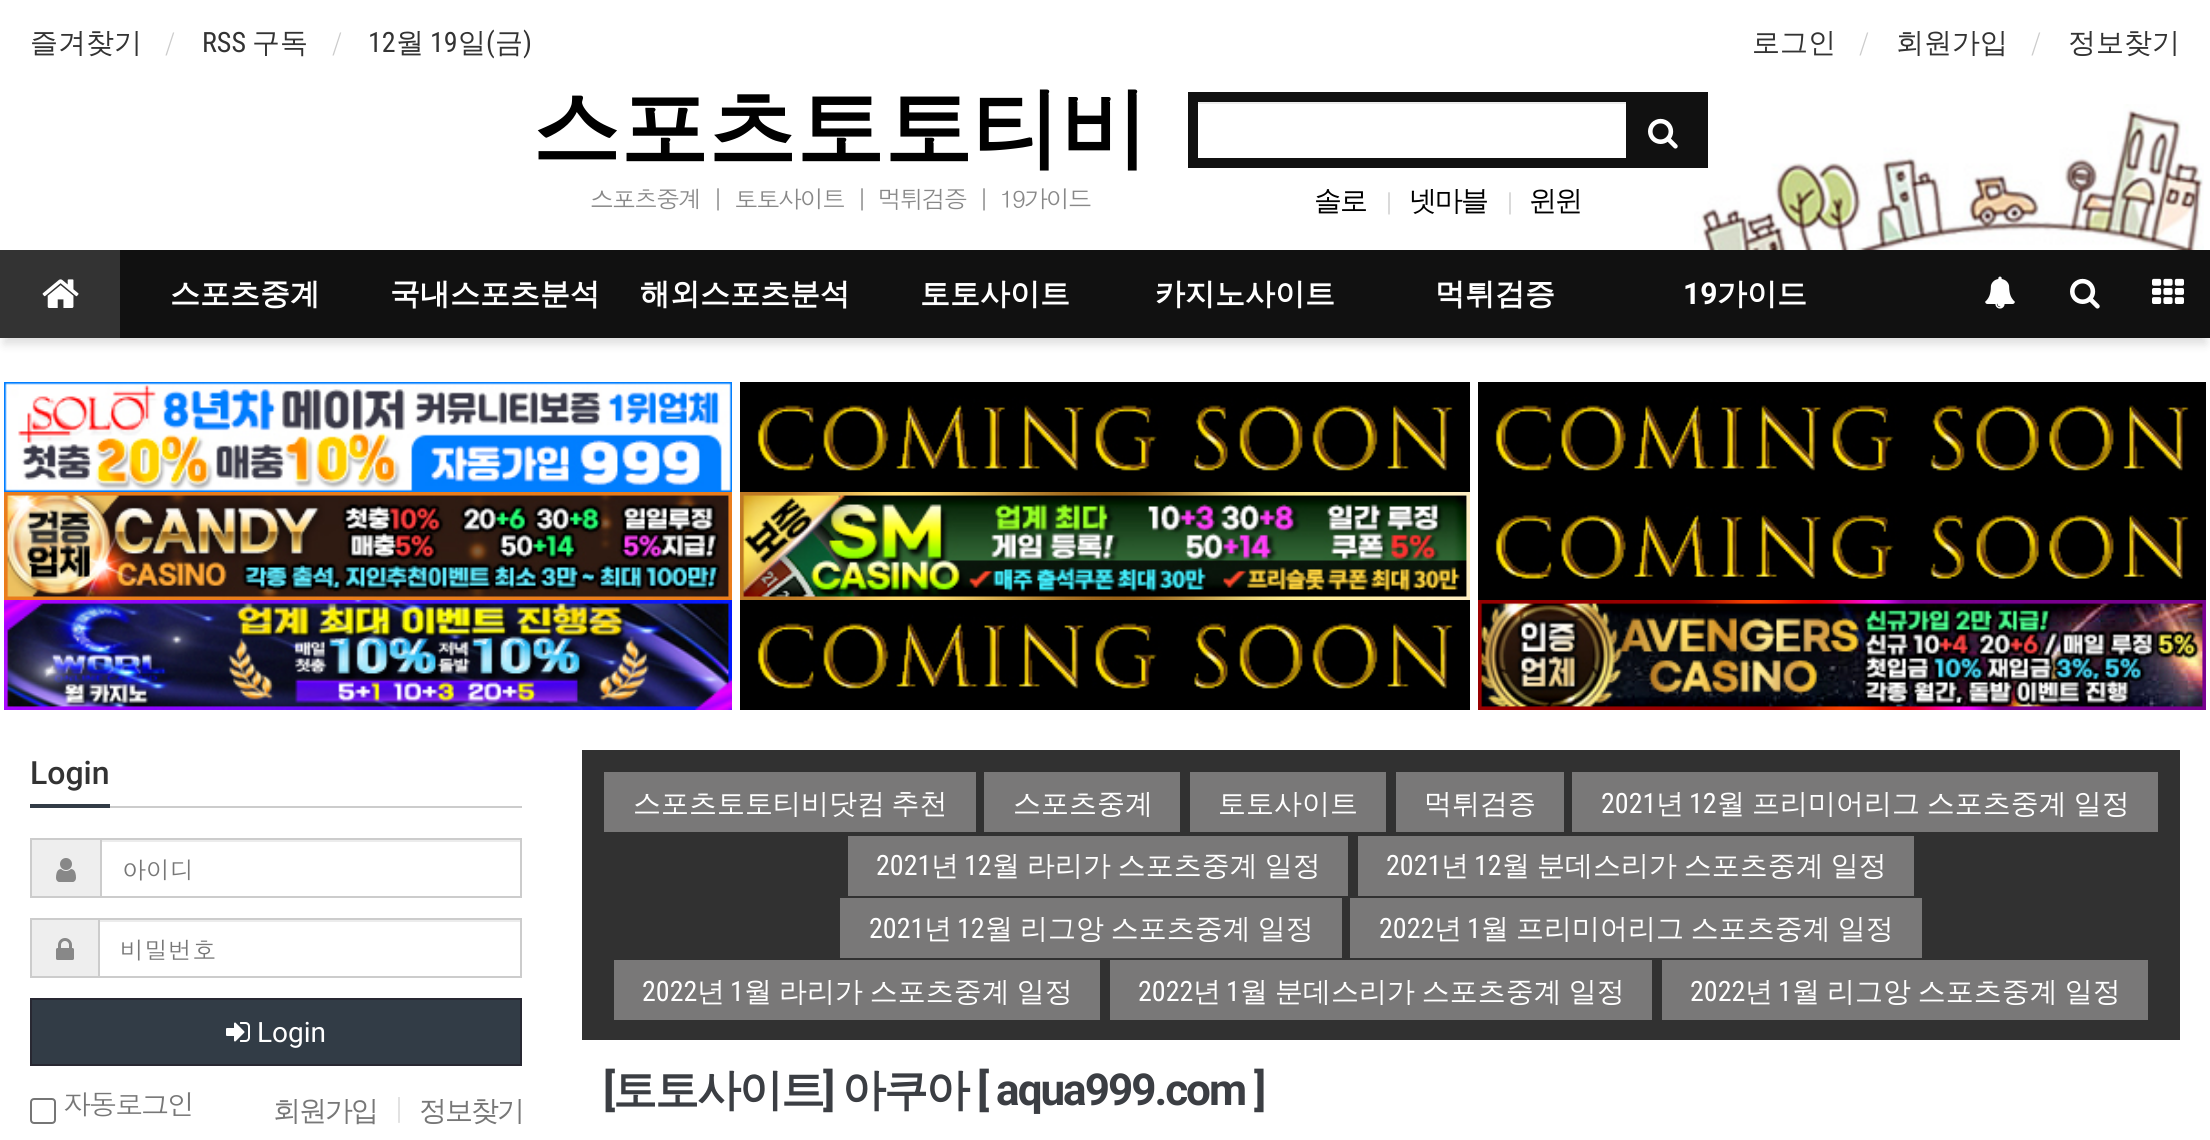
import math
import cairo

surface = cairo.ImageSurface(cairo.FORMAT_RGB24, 2210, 1140)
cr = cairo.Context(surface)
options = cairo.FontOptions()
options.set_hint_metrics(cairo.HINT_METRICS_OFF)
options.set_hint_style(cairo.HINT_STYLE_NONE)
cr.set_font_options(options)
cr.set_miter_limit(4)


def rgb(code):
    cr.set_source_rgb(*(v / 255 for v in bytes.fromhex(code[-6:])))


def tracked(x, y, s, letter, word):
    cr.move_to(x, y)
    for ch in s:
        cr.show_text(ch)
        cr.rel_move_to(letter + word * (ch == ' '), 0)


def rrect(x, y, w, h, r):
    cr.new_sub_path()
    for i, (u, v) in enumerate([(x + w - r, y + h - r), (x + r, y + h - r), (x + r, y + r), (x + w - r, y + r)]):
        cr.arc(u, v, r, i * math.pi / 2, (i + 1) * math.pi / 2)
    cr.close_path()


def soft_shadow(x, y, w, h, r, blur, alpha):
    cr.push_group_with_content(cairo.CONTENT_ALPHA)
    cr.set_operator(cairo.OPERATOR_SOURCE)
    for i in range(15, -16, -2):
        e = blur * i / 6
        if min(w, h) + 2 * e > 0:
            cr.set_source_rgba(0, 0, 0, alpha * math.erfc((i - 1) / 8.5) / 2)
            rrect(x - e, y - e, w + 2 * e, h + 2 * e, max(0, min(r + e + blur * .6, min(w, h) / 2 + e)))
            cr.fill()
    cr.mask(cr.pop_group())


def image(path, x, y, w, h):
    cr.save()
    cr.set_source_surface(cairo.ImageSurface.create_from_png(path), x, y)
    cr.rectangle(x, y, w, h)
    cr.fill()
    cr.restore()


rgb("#ffffff")
cr.paint()
image("img/1.png", 1694, 104, 510, 146)
for x, y, w, h, color in [
    (1188, 92, 520, 76, "#111111"),
    (1198, 104, 428, 54, "#ffffff"),
    (1198, 102, 428, 2, "#ececec"),
]:
    rgb(color)
    cr.rectangle(x, y, w, h)
    cr.fill()
image("img/2.png", 1648, 118, 30, 31)
rgb("#191919")
soft_shadow(4, 264, 2202, 80, 0, 5, 0.15)
rgb("#111111")
cr.rectangle(120, 250, 2090, 88)
cr.fill()
rgb("#333333")
cr.rectangle(0, 250, 120, 88)
cr.fill()
image("img/3.png", 42, 279, 37, 29)
image("img/4.png", 1985, 276, 30, 33)
image("img/2.png", 2070, 278, 30, 31)
image("img/5.png", 2152, 278, 32, 26)
image("img/6.png", 4, 382, 728, 110)
image("img/7.png", 740, 382, 730, 110)
image("img/8.png", 1478, 382, 728, 110)
image("img/9.png", 4, 492, 728, 108)
image("img/10.png", 740, 492, 730, 108)
image("img/11.png", 1478, 492, 728, 108)
image("img/12.png", 4, 600, 728, 110)
image("img/7.png", 740, 600, 730, 110)
image("img/13.png", 1478, 600, 728, 110)
for x, y, w, h, color in [
    (110, 806, 412, 2, "#cccccc"),
    (30, 804, 80, 4, "#323c46"),
    (32, 840, 68, 56, "#eeeeee"),
    (30, 838, 70, 2, "#cccccc"),
    (30, 896, 70, 2, "#cccccc"),
    (30, 838, 2, 60, "#cccccc"),
]:
    rgb(color)
    cr.rectangle(x, y, w, h)
    cr.fill()
image("img/14.png", 56, 858, 20, 24)
rgb("#ececec")
cr.rectangle(102, 840, 418, 2)
cr.fill()
cr.rectangle(101, 839, 420, 58)
rgb("#cccccc")
cr.stroke()
for x, y, w, h, color in [
    (32, 920, 66, 56, "#eeeeee"),
    (30, 918, 68, 2, "#cccccc"),
    (30, 976, 68, 2, "#cccccc"),
    (30, 918, 2, 60, "#cccccc"),
]:
    rgb(color)
    cr.rectangle(x, y, w, h)
    cr.fill()
image("img/15.png", 56, 938, 18, 22)
rgb("#ececec")
cr.rectangle(100, 920, 420, 2)
cr.fill()
cr.rectangle(99, 919, 422, 58)
rgb("#cccccc")
cr.stroke()
rgb("#323c46")
cr.rectangle(31, 999, 490, 66)
cr.fill_preserve()
rgb("#282832")
cr.stroke()
image("img/16.png", 226, 1022, 24, 20)
rrect(31, 1099, 24, 24, 3)
rgb("#767676")
cr.stroke()
for x, y, w, h, color in [
    (582, 750, 1598, 290, "#313131"),
    (604, 772, 372, 60, "#797878"),
    (984, 772, 196, 60, "#797878"),
    (1190, 772, 196, 60, "#797878"),
    (1396, 772, 168, 60, "#797878"),
    (1572, 772, 586, 60, "#797878"),
    (848, 836, 500, 60, "#797878"),
    (1358, 836, 556, 60, "#797878"),
    (840, 898, 502, 60, "#797878"),
    (1350, 898, 572, 60, "#797878"),
    (614, 960, 486, 60, "#797878"),
    (1110, 960, 542, 60, "#797878"),
    (1662, 960, 486, 60, "#797878"),
]:
    rgb(color)
    cr.rectangle(x, y, w, h)
    cr.fill()
cr.select_font_face("WenQuanYi Zen Hei Medium")
cr.set_font_size(28)
rgb("#333333")
cr.move_to(30, 52)
cr.show_text("즐겨찾기")
cr.select_font_face("Dotum")
rgb("#cccccc")
cr.move_to(164, 54)
cr.show_text("/")
cr.select_font_face("Roboto Condensed")
rgb("#333333")
cr.move_to(202, 52)
cr.show_text("RSS")
cr.select_font_face("WenQuanYi Zen Hei Medium")
cr.move_to(252, 52)
cr.show_text("구독")
cr.select_font_face("Dotum")
rgb("#cccccc")
cr.move_to(331, 54)
cr.show_text("/")
cr.select_font_face("Roboto Condensed")
rgb("#333333")
cr.move_to(368, 52)
cr.show_text("12")
cr.select_font_face("WenQuanYi Zen Hei Medium")
cr.move_to(396, 52)
cr.show_text("월")
cr.select_font_face("Roboto Condensed")
cr.move_to(430, 52)
cr.show_text("19")
cr.select_font_face("WenQuanYi Zen Hei Medium")
cr.move_to(458, 52)
cr.show_text("일")
cr.select_font_face("Roboto Condensed")
cr.move_to(486, 52)
cr.show_text("(")
cr.select_font_face("WenQuanYi Zen Hei Medium")
cr.move_to(495, 52)
cr.show_text("금")
cr.select_font_face("Roboto Condensed")
cr.move_to(523, 52)
cr.show_text(")")
cr.select_font_face("WenQuanYi Zen Hei Medium")
cr.move_to(1752, 52)
cr.show_text("로그인")
cr.select_font_face("Dotum")
rgb("#cccccc")
cr.move_to(1858, 54)
cr.show_text("/")
cr.select_font_face("WenQuanYi Zen Hei Medium")
rgb("#333333")
cr.move_to(1896, 52)
cr.show_text("회원가입")
cr.select_font_face("Dotum")
rgb("#cccccc")
cr.move_to(2030, 54)
cr.show_text("/")
cr.select_font_face("WenQuanYi Zen Hei Medium")
rgb("#333333")
cr.move_to(2068, 52)
cr.show_text("정보찾기")
cr.select_font_face("WenQuanYi Zen Hei", cairo.FONT_SLANT_NORMAL, cairo.FONT_WEIGHT_BOLD)
cr.set_font_size(88)
rgb("#000000")
cr.move_to(532, 158)
cr.show_text("스포츠토토티비")
cr.select_font_face("Dotum")
cr.set_font_size(24)
rgb("#888888")
tracked(590, 208, "스포츠중계 ｜ 토토사이트 ｜ 먹튀검증 ｜ 19가이드", -2, 0)
cr.select_font_face("WenQuanYi Zen Hei Medium")
cr.set_font_size(28)
rgb("#000000")
tracked(1314, 210, "솔로", -2, 0)
cr.select_font_face("Dotum")
cr.set_font_size(24)
rgb("#cccccc")
tracked(1383, 212, "|", -2, 0)
cr.select_font_face("WenQuanYi Zen Hei Medium")
cr.set_font_size(28)
rgb("#000000")
tracked(1409, 210, "넷마블", -2, 0)
cr.select_font_face("Dotum")
cr.set_font_size(24)
rgb("#cccccc")
tracked(1504, 212, "|", -2, 0)
cr.select_font_face("WenQuanYi Zen Hei Medium")
cr.set_font_size(28)
rgb("#000000")
tracked(1529, 210, "윈윈", -2, 0)
cr.select_font_face("WenQuanYi Zen Hei", cairo.FONT_SLANT_NORMAL, cairo.FONT_WEIGHT_BOLD)
cr.set_font_size(30)
rgb("#ffffff")
for x, y, s in [
    (170, 304, "스포츠중계"),
    (390, 304, "국내스포츠분석"),
    (640, 304, "해외스포츠분석"),
    (920, 304, "토토사이트"),
    (1155, 304, "카지노사이트"),
    (1435, 304, "먹튀검증"),
]:
    cr.move_to(x, y)
    cr.show_text(s)
cr.select_font_face("Roboto", cairo.FONT_SLANT_NORMAL, cairo.FONT_WEIGHT_BOLD)
cr.move_to(1683, 304)
cr.show_text("19")
cr.select_font_face("WenQuanYi Zen Hei", cairo.FONT_SLANT_NORMAL, cairo.FONT_WEIGHT_BOLD)
cr.move_to(1717, 304)
cr.show_text("가이드")
cr.select_font_face("Roboto Medium")
cr.set_font_size(32)
rgb("#333333")
cr.move_to(30, 784)
cr.show_text("Login")
cr.select_font_face("Dotum")
cr.set_font_size(24)
rgb("#777777")
cr.move_to(122, 879)
cr.show_text("아이디")
cr.move_to(120, 959)
cr.show_text("비밀번호")
cr.select_font_face("Roboto")
cr.set_font_size(28)
rgb("#ffffff")
cr.move_to(257, 1042)
cr.show_text("Login")
cr.select_font_face("Dotum")
rgb("#777777")
tracked(63, 1115, "자동로그인", -2, 0)
cr.select_font_face("WenQuanYi Zen Hei Medium")
tracked(273, 1120, "회원가입", -2, 0)
cr.select_font_face("Dotum")
rgb("#dddddd")
tracked(392, 1120, "|", -2, 0)
cr.select_font_face("WenQuanYi Zen Hei Medium")
rgb("#777777")
tracked(419, 1120, "정보찾기", -2, 0)
rgb("#ffffff")
tracked(633, 813, "스포츠토토티비닷컴 추천", 0, -2)
for x, y, s in [
    (1013, 813, "스포츠중계"),
    (1218, 813, "토토사이트"),
    (1424, 813, "먹튀검증"),
]:
    cr.move_to(x, y)
    cr.show_text(s)
cr.select_font_face("Roboto Condensed")
cr.move_to(1601, 813)
cr.show_text("2021")
cr.select_font_face("WenQuanYi Zen Hei Medium")
cr.move_to(1656, 813)
cr.show_text("년")
cr.select_font_face("Roboto Condensed")
cr.move_to(1689, 813)
cr.show_text("12")
cr.select_font_face("WenQuanYi Zen Hei Medium")
tracked(1717, 813, "월 프리미어리그 스포츠중계 일정", 0, -1.5)
cr.select_font_face("Roboto Condensed")
cr.move_to(876, 875)
cr.show_text("2021")
cr.select_font_face("WenQuanYi Zen Hei Medium")
cr.move_to(931, 875)
cr.show_text("년")
cr.select_font_face("Roboto Condensed")
cr.move_to(964, 875)
cr.show_text("12")
cr.select_font_face("WenQuanYi Zen Hei Medium")
tracked(992, 875, "월 라리가 스포츠중계 일정", 0, -1.5)
cr.select_font_face("Roboto Condensed")
cr.move_to(1386, 875)
cr.show_text("2021")
cr.select_font_face("WenQuanYi Zen Hei Medium")
cr.move_to(1441, 875)
cr.show_text("년")
cr.select_font_face("Roboto Condensed")
cr.move_to(1474, 875)
cr.show_text("12")
cr.select_font_face("WenQuanYi Zen Hei Medium")
tracked(1502, 875, "월 분데스리가 스포츠중계 일정", 0, -1.5)
cr.select_font_face("Roboto Condensed")
cr.move_to(869, 938)
cr.show_text("2021")
cr.select_font_face("WenQuanYi Zen Hei Medium")
cr.move_to(924, 938)
cr.show_text("년")
cr.select_font_face("Roboto Condensed")
cr.move_to(957, 938)
cr.show_text("12")
cr.select_font_face("WenQuanYi Zen Hei Medium")
tracked(985, 938, "월 리그앙 스포츠중계 일정", 0, -1.5)
cr.select_font_face("Roboto Condensed")
cr.move_to(1379, 938)
cr.show_text("2022")
cr.select_font_face("WenQuanYi Zen Hei Medium")
cr.move_to(1434, 938)
cr.show_text("년")
cr.select_font_face("Roboto Condensed")
cr.move_to(1467, 938)
cr.show_text("1")
cr.select_font_face("WenQuanYi Zen Hei Medium")
tracked(1481, 938, "월 프리미어리그 스포츠중계 일정", 0, -1.5)
cr.select_font_face("Roboto Condensed")
cr.move_to(642, 1001)
cr.show_text("2022")
cr.select_font_face("WenQuanYi Zen Hei Medium")
cr.move_to(697, 1001)
cr.show_text("년")
cr.select_font_face("Roboto Condensed")
cr.move_to(730, 1001)
cr.show_text("1")
cr.select_font_face("WenQuanYi Zen Hei Medium")
tracked(744, 1001, "월 라리가 스포츠중계 일정", 0, -1.5)
cr.select_font_face("Roboto Condensed")
cr.move_to(1138, 1001)
cr.show_text("2022")
cr.select_font_face("WenQuanYi Zen Hei Medium")
cr.move_to(1193, 1001)
cr.show_text("년")
cr.select_font_face("Roboto Condensed")
cr.move_to(1226, 1001)
cr.show_text("1")
cr.select_font_face("WenQuanYi Zen Hei Medium")
tracked(1240, 1001, "월 분데스리가 스포츠중계 일정", 0, -1.5)
cr.select_font_face("Roboto Condensed")
cr.move_to(1690, 1001)
cr.show_text("2022")
cr.select_font_face("WenQuanYi Zen Hei Medium")
cr.move_to(1745, 1001)
cr.show_text("년")
cr.select_font_face("Roboto Condensed")
cr.move_to(1778, 1001)
cr.show_text("1")
cr.select_font_face("WenQuanYi Zen Hei Medium")
tracked(1792, 1001, "월 리그앙 스포츠중계 일정", 0, -1.5)
cr.select_font_face("Roboto", cairo.FONT_SLANT_NORMAL, cairo.FONT_WEIGHT_BOLD)
cr.set_font_size(44)
rgb("#3b3e43")
tracked(603, 1105, "[", -2, 0)
cr.select_font_face("WenQuanYi Zen Hei", cairo.FONT_SLANT_NORMAL, cairo.FONT_WEIGHT_BOLD)
tracked(613, 1105, "토토사이트", -2, 0)
cr.select_font_face("Roboto", cairo.FONT_SLANT_NORMAL, cairo.FONT_WEIGHT_BOLD)
tracked(823, 1105, "]", -2, 0)
cr.select_font_face("WenQuanYi Zen Hei", cairo.FONT_SLANT_NORMAL, cairo.FONT_WEIGHT_BOLD)
tracked(842, 1105, "아쿠아", -2, 0)
cr.select_font_face("Roboto", cairo.FONT_SLANT_NORMAL, cairo.FONT_WEIGHT_BOLD)
tracked(977, 1105, "[ aqua999.com ]", -2, 0)
surface.write_to_png("page.png")
